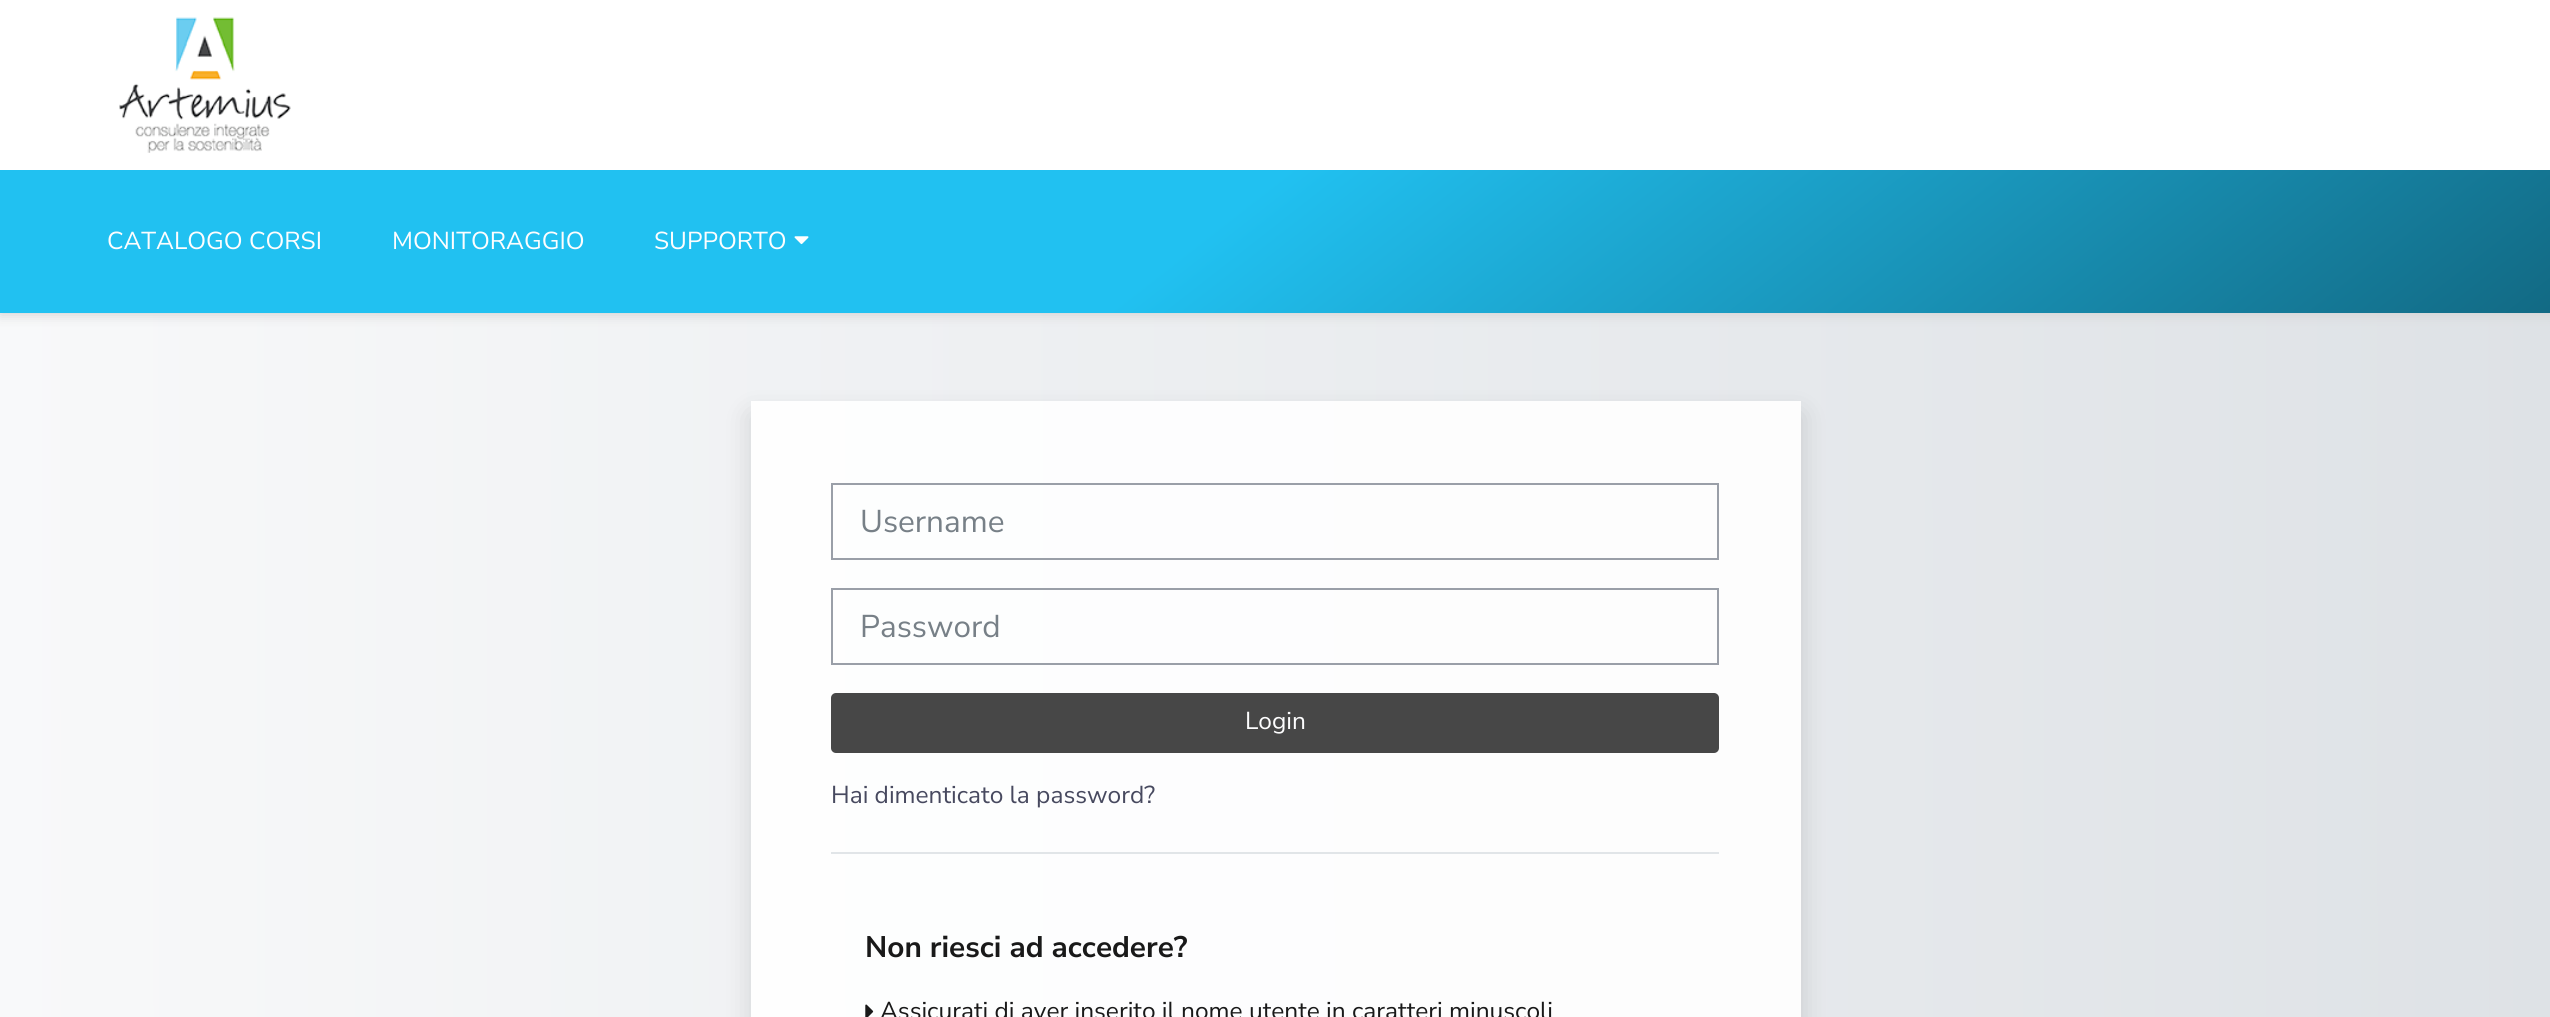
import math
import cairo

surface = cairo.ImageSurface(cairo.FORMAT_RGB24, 2550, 1017)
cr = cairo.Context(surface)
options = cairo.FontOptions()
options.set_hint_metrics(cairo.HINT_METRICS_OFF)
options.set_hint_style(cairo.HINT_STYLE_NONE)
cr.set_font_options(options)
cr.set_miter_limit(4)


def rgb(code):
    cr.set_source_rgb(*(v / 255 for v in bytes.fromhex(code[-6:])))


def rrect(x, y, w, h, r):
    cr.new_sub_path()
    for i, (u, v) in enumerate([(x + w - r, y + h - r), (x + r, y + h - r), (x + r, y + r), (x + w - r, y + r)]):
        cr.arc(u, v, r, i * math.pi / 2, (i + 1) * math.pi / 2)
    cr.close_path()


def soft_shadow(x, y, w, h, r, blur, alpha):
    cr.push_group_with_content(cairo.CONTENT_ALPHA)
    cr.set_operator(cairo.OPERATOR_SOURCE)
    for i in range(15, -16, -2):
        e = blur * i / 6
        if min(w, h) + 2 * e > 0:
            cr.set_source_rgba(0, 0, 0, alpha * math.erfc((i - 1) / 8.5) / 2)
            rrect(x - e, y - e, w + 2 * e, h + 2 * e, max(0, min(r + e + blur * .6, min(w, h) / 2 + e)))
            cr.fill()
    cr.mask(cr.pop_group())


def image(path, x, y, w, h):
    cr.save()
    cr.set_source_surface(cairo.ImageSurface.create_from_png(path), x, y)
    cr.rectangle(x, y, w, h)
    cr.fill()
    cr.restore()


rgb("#ffffff")
cr.paint()
gradient = cairo.LinearGradient(0, 823, 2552, 822)
gradient.add_color_stop_rgba(0, 0.973, 0.976, 0.98, 1)
gradient.add_color_stop_rgba(1, 0.871, 0.886, 0.902, 1)
cr.set_source(gradient)
cr.rectangle(0, 313, 2550, 704)
cr.fill()
cr.save()
cr.rectangle(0, 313, 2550, 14)
cr.clip()
rgb("#d3d3d3")
soft_shadow(0, 2, 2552, 313, 0, 6, 1)
cr.restore()
image("img/1.png", 119, 17, 172, 136)
gradient = cairo.LinearGradient(545, -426, 2328, 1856)
gradient.add_color_stop_rgba(0.25, 0.129, 0.757, 0.945, 1)
gradient.add_color_stop_rgba(0.32, 0.129, 0.757, 0.945, 1)
gradient.add_color_stop_rgba(1, 0, 0, 0, 1)
cr.set_source(gradient)
cr.rectangle(0, 170, 2550, 143)
cr.fill()
image("img/2.png", 794, 236, 15, 9)
cr.save()
cr.set_fill_rule(cairo.FILL_RULE_EVEN_ODD)
cr.new_path()
cr.move_to(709, 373)
cr.line_to(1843, 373)
cr.line_to(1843, 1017)
cr.line_to(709, 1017)
cr.close_path()
cr.move_to(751, 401)
cr.line_to(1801, 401)
cr.line_to(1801, 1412)
cr.line_to(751, 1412)
cr.close_path()
cr.clip()
rgb("#000000")
soft_shadow(751, 415, 1050, 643, 0, 13.5, 0.14)
cr.restore()
cr.set_source_rgba(1, 1, 1, 0.9)
cr.rectangle(751, 401, 1050, 616)
cr.fill()
cr.rectangle(832, 484, 886, 75)
rgb("#9a9fa8")
cr.stroke()
cr.rectangle(832, 589, 886, 75)
cr.stroke()
rgb("#474747")
rrect(831, 693, 888, 60, 5)
cr.fill()
rgb("#e1e5e8")
cr.rectangle(831, 852, 888, 2)
cr.fill()
image("img/3.png", 865, 1004, 9, 13)
cr.select_font_face("Nunito Sans")
cr.set_font_size(24.5)
rgb("#fdfdfe")
for x, y, s in [
    (107, 249, "CATALOGO CORSI"),
    (392, 249, "MONITORAGGIO"),
    (654, 249, "SUPPORTO"),
]:
    cr.move_to(x, y)
    cr.show_text(s)
cr.set_font_size(31.5)
rgb("#778087")
cr.move_to(860, 532)
cr.show_text("Username")
cr.move_to(860, 637)
cr.show_text("Password")
cr.set_font_size(24.5)
rgb("#fdfdfe")
cr.move_to(1245, 729)
cr.show_text("Login")
rgb("#47495f")
cr.move_to(831, 803)
cr.show_text("Hai dimenticato la password?")
cr.select_font_face("Nunito Sans", cairo.FONT_SLANT_NORMAL, cairo.FONT_WEIGHT_BOLD)
cr.set_font_size(29.75)
rgb("#191919")
cr.move_to(865, 957)
cr.show_text("Non riesci ad accedere?")
cr.select_font_face("Nunito Sans")
cr.set_font_size(24.5)
cr.move_to(880, 1019)
cr.show_text("Assicurati di aver inserito il nome utente in caratteri minuscoli")
surface.write_to_png("page.png")
